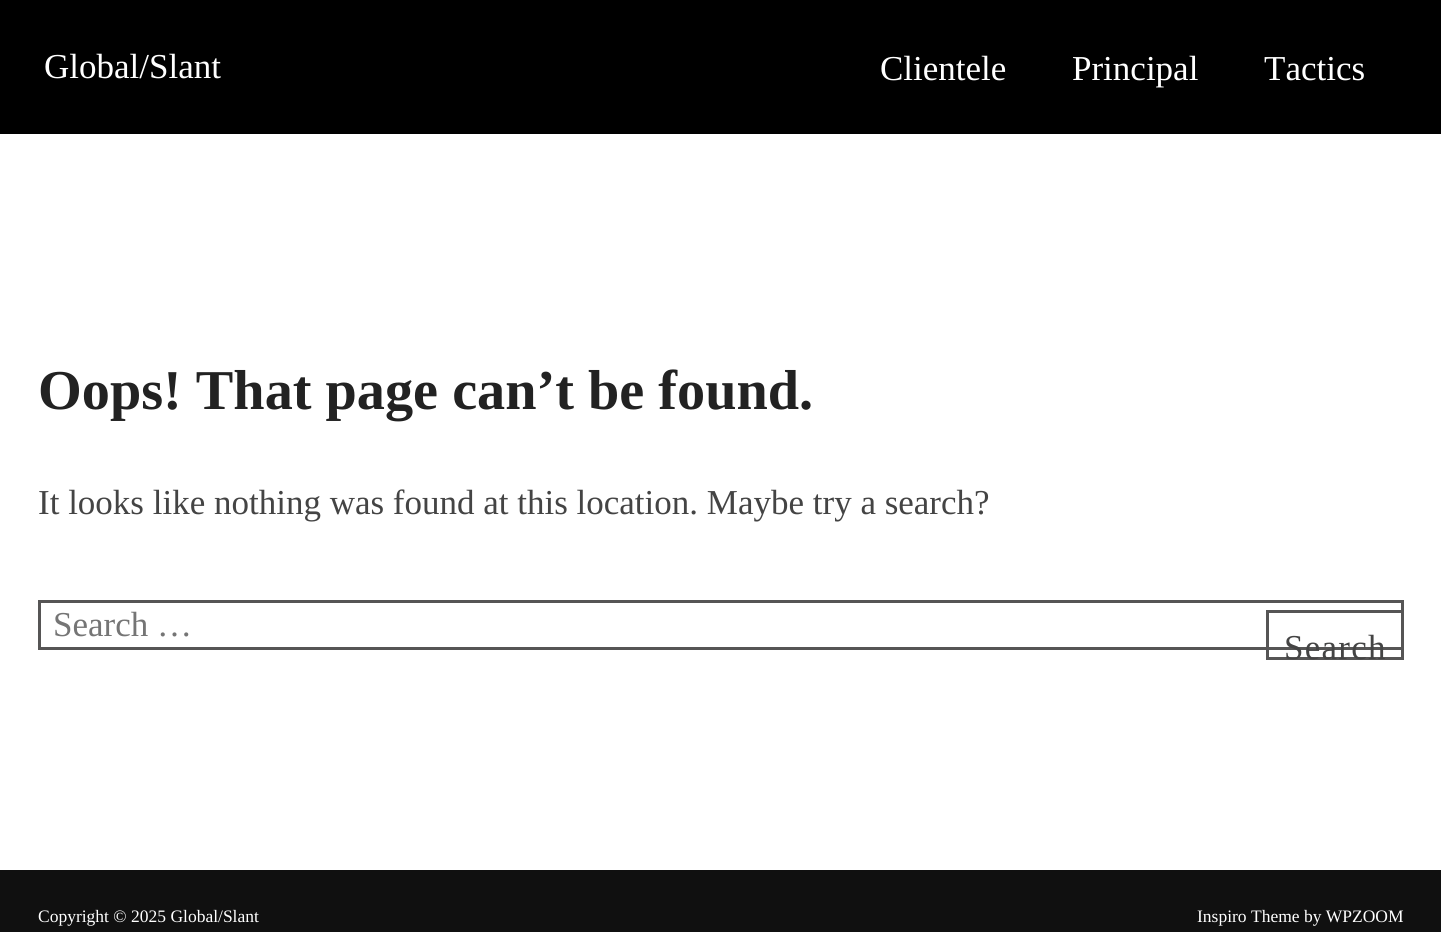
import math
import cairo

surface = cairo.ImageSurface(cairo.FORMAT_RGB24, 1441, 932)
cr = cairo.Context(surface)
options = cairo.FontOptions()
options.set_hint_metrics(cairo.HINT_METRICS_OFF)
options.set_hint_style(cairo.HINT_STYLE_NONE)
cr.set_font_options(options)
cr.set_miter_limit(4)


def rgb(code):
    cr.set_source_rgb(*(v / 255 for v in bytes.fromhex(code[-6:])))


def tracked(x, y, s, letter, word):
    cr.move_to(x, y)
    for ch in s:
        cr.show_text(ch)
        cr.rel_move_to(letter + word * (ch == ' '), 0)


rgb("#ffffff")
cr.paint()
rgb("#000000")
cr.rectangle(0, 0, 1441, 134)
cr.fill()
cr.rectangle(39.5, 601.5, 1363, 47)
rgb("#565555")
cr.set_line_width(3)
cr.stroke()
cr.rectangle(1267.5, 611.5, 135, 47)
cr.stroke()
rgb("#101010")
cr.rectangle(0, 870, 1441, 62)
cr.fill()
cr.select_font_face("Liberation Serif")
cr.set_font_size(35)
rgb("#ffffff")
for x, y, s in [
    (44, 78, "Global/Slant"),
    (880, 80, "Clientele"),
    (1072, 80, "Principal"),
    (1264, 80, "Tactics"),
]:
    cr.move_to(x, y)
    cr.show_text(s)
cr.select_font_face("Liberation Serif", cairo.FONT_SLANT_NORMAL, cairo.FONT_WEIGHT_BOLD)
cr.set_font_size(56.25)
rgb("#222222")
cr.move_to(38, 409)
cr.show_text("Oops! That page can’t be found.")
cr.select_font_face("Liberation Serif")
cr.set_font_size(35)
rgb("#444444")
cr.move_to(38, 514)
cr.show_text("It looks like nothing was found at this location. Maybe try a search?")
rgb("#757575")
cr.move_to(53, 636)
cr.show_text("Search …")
rgb("#444444")
tracked(1284, 659, "Search", 1.25, 0)
cr.set_font_size(17.5)
rgb("#ffffff")
cr.move_to(38, 922)
cr.show_text("Copyright © 2025 Global/Slant")
cr.move_to(1197, 922)
cr.show_text("Inspiro Theme by WPZOOM")
surface.write_to_png("page.png")
